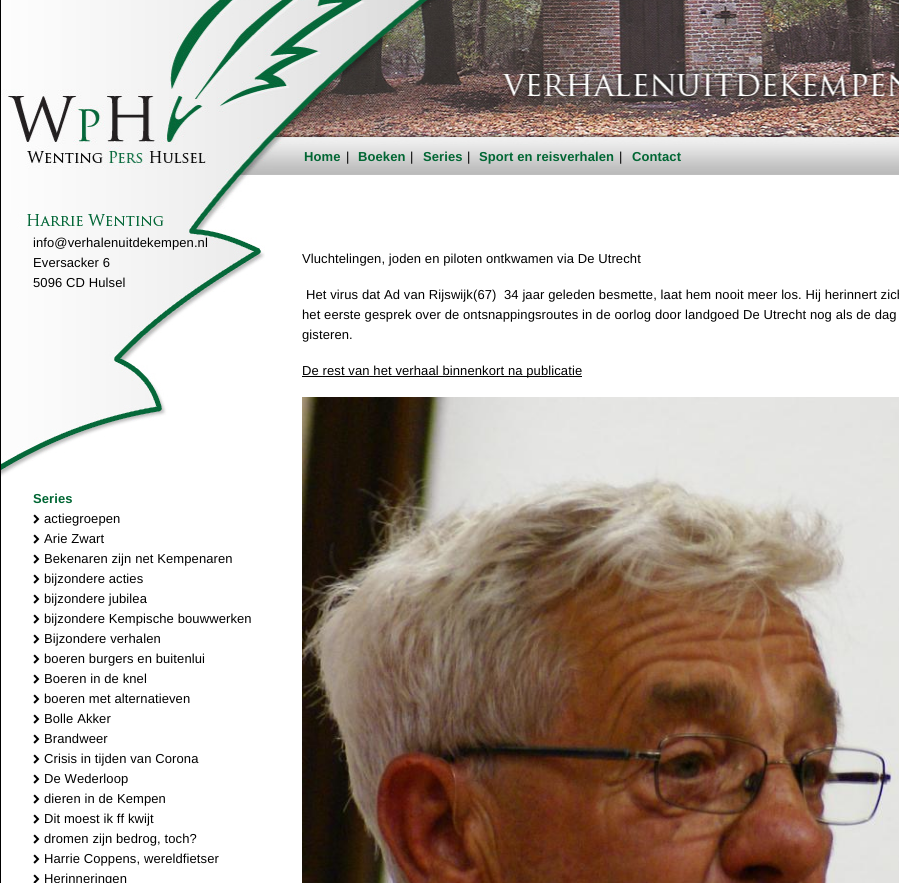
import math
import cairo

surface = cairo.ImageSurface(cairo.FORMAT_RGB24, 899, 883)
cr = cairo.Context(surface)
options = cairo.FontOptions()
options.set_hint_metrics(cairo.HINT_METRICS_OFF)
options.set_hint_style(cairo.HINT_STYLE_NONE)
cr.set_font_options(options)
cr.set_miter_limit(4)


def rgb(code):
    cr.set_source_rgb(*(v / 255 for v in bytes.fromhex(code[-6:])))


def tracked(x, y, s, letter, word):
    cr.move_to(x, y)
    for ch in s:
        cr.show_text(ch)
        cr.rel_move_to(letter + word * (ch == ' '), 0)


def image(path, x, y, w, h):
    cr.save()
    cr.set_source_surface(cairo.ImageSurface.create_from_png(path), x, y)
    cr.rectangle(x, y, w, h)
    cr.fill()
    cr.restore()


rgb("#ffffff")
cr.paint()
rgb("#000000")
cr.rectangle(0, 0, 1, 883)
cr.fill()
image("img/1.png", 1, 0, 898, 213)
image("img/2.png", 1, 213, 264, 264)
image("img/3.png", 33, 514, 7, 10)
image("img/3.png", 33, 534, 7, 10)
image("img/3.png", 33, 554, 7, 10)
image("img/3.png", 33, 574, 7, 10)
image("img/3.png", 33, 594, 7, 10)
image("img/3.png", 33, 614, 7, 10)
image("img/3.png", 33, 634, 7, 10)
image("img/3.png", 33, 654, 7, 10)
image("img/3.png", 33, 674, 7, 10)
image("img/3.png", 33, 694, 7, 10)
image("img/3.png", 33, 714, 7, 10)
image("img/3.png", 33, 734, 7, 10)
image("img/3.png", 33, 754, 7, 10)
image("img/3.png", 33, 774, 7, 10)
image("img/3.png", 33, 794, 7, 10)
image("img/3.png", 33, 814, 7, 10)
image("img/3.png", 33, 834, 7, 10)
image("img/3.png", 33, 854, 7, 10)
image("img/4.png", 33, 874, 7, 9)
cr.rectangle(302, 376, 280, 1)
cr.fill()
image("img/5.png", 302, 397, 597, 486)
cr.select_font_face("Liberation Sans", cairo.FONT_SLANT_NORMAL, cairo.FONT_WEIGHT_BOLD)
cr.set_font_size(13)
rgb("#006633")
tracked(304, 161, "Home", 0.1, 0)
cr.select_font_face("Liberation Sans")
rgb("#000000")
tracked(346, 161, "|", 0.1, 0)
cr.select_font_face("Liberation Sans", cairo.FONT_SLANT_NORMAL, cairo.FONT_WEIGHT_BOLD)
rgb("#006633")
tracked(358, 161, "Boeken", 0.1, 0)
cr.select_font_face("Liberation Sans")
rgb("#000000")
tracked(410, 161, "|", 0.1, 0)
cr.select_font_face("Liberation Sans", cairo.FONT_SLANT_NORMAL, cairo.FONT_WEIGHT_BOLD)
rgb("#006633")
tracked(423, 161, "Series", 0.1, 0)
cr.select_font_face("Liberation Sans")
rgb("#000000")
tracked(467, 161, "|", 0.1, 0)
cr.select_font_face("Liberation Sans", cairo.FONT_SLANT_NORMAL, cairo.FONT_WEIGHT_BOLD)
rgb("#006633")
tracked(479, 161, "Sport en reisverhalen", 0.1, 0)
cr.select_font_face("Liberation Sans")
rgb("#000000")
tracked(619, 161, "|", 0.1, 0)
cr.select_font_face("Liberation Sans", cairo.FONT_SLANT_NORMAL, cairo.FONT_WEIGHT_BOLD)
rgb("#006633")
tracked(632, 161, "Contact", 0.1, 0)
cr.select_font_face("Liberation Sans")
rgb("#000000")
for x, y, s in [
    (33, 247, "info@verhalenuitdekempen.nl"),
    (33, 267, "Eversacker 6"),
    (33, 287, "5096 CD Hulsel"),
]:
    tracked(x, y, s, 0.1, 0)
cr.select_font_face("Liberation Sans", cairo.FONT_SLANT_NORMAL, cairo.FONT_WEIGHT_BOLD)
rgb("#006633")
tracked(33, 503, "Series", 0.1, 0)
cr.select_font_face("Liberation Sans")
rgb("#000000")
for x, y, s in [
    (44, 523, "actiegroepen"),
    (44, 543, "Arie Zwart"),
    (44, 563, "Bekenaren zijn net Kempenaren"),
    (44, 583, "bijzondere acties"),
    (44, 603, "bijzondere jubilea"),
    (44, 623, "bijzondere Kempische bouwwerken"),
    (44, 643, "Bijzondere verhalen"),
    (44, 663, "boeren burgers en buitenlui"),
    (44, 683, "Boeren in de knel"),
    (44, 703, "boeren met alternatieven"),
    (44, 723, "Bolle Akker"),
    (44, 743, "Brandweer"),
    (44, 763, "Crisis in tijden van Corona"),
    (44, 783, "De Wederloop"),
    (44, 803, "dieren in de Kempen"),
    (44, 823, "Dit moest ik ff kwijt"),
    (44, 843, "dromen zijn bedrog, toch?"),
    (44, 863, "Harrie Coppens, wereldfietser"),
    (44, 883, "Herinneringen"),
    (302, 263, "Vluchtelingen, joden en piloten ontkwamen via De Utrecht"),
    (306, 299, "Het virus dat Ad van Rijswijk(67)"),
    (504, 299, "34 jaar geleden besmette, laat hem nooit meer los. Hij herinnert zich"),
    (302, 319, "het eerste gesprek over de ontsnappingsroutes in de oorlog door landgoed De Utrecht nog als de dag"),
    (302, 339, "gisteren."),
    (302, 375, "De rest van het verhaal binnenkort na publicatie"),
]:
    tracked(x, y, s, 0.1, 0)
surface.write_to_png("page.png")
